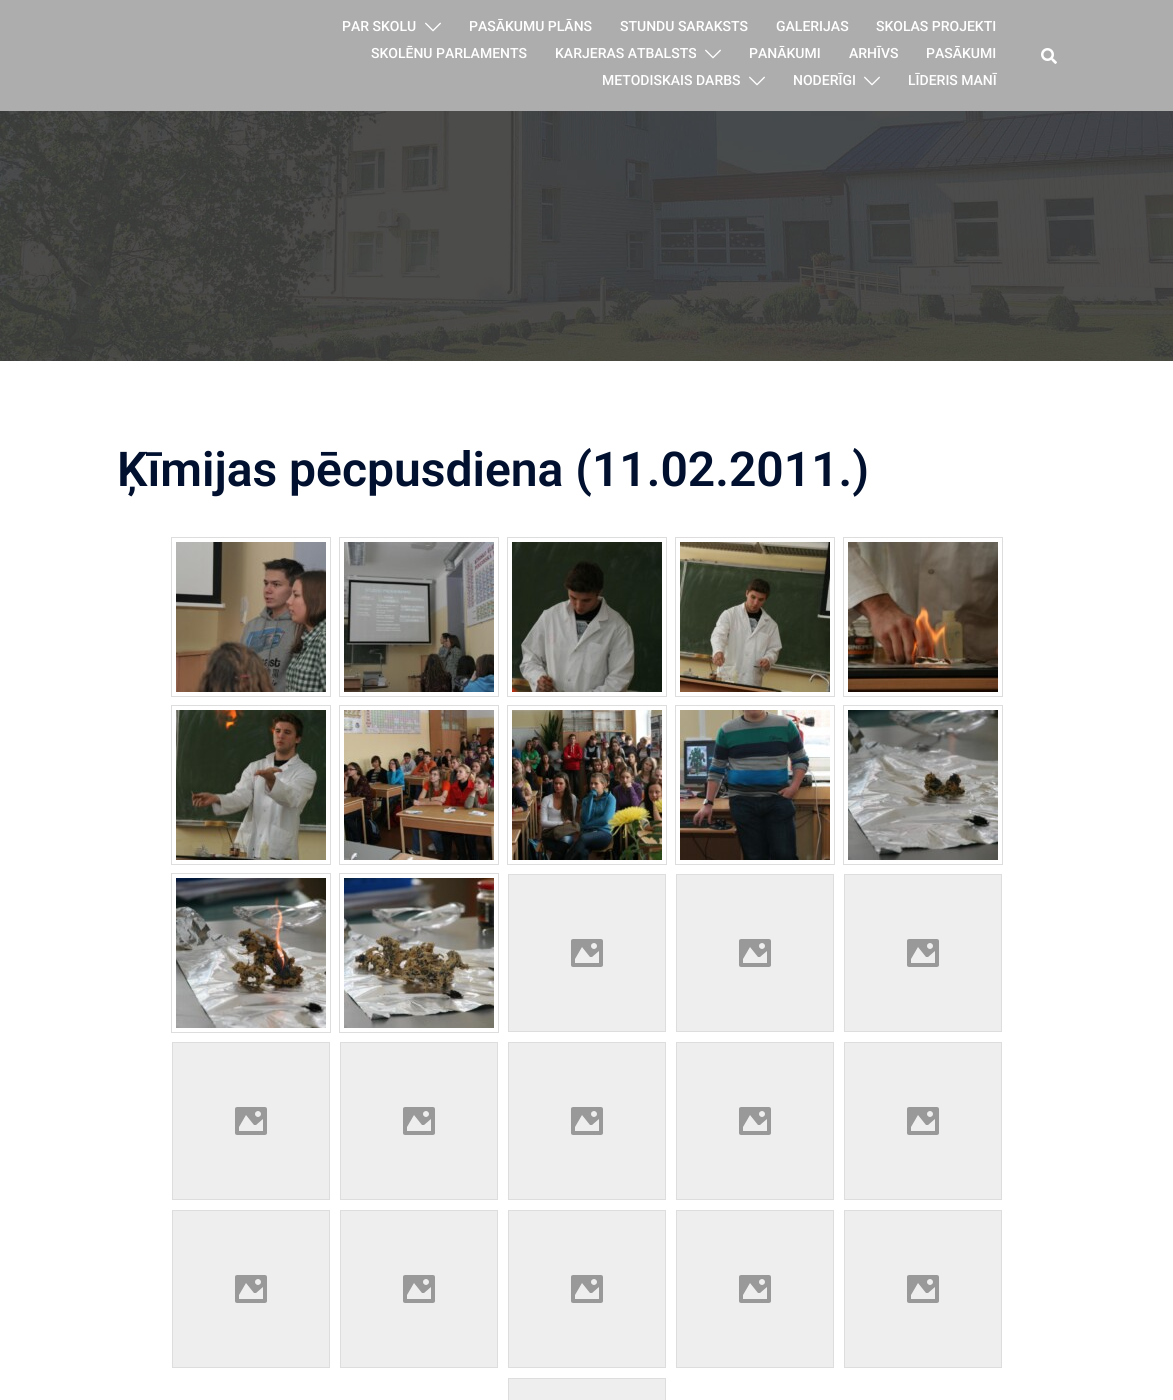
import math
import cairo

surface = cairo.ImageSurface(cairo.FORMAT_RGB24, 1173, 1400)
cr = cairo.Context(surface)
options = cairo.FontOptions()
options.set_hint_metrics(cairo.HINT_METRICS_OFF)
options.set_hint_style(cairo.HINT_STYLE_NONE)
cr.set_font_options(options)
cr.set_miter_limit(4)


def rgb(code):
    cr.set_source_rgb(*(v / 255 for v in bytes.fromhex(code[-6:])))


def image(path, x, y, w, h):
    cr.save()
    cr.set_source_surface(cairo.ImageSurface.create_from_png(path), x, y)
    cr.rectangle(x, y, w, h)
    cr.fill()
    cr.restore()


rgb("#ffffff")
cr.paint()
rgb("#adadad")
cr.rectangle(0, 0, 1173, 111)
cr.fill()
image("img/1.png", 425, 22, 16, 10)
image("img/1.png", 705, 49, 16, 10)
image("img/1.png", 749, 76, 16, 10)
image("img/1.png", 864, 76, 16, 10)
image("img/2.png", 1041, 48, 16, 16)
image("img/3.png", 0, 111, 1173, 250)
cr.rectangle(171.5, 537.5, 159, 159)
rgb("#dddddd")
cr.set_line_width(1)
cr.stroke()
image("img/4.png", 176, 542, 150, 150)
cr.rectangle(339.5, 537.5, 159, 159)
cr.stroke()
image("img/5.png", 344, 542, 150, 150)
cr.rectangle(507.5, 537.5, 159, 159)
cr.stroke()
image("img/6.png", 512, 542, 150, 150)
cr.rectangle(675.5, 537.5, 159, 159)
cr.stroke()
image("img/7.png", 680, 542, 150, 150)
cr.rectangle(843.5, 537.5, 159, 159)
cr.stroke()
image("img/8.png", 848, 542, 150, 150)
cr.rectangle(171.5, 705.5, 159, 159)
cr.stroke()
image("img/9.png", 176, 710, 150, 150)
cr.rectangle(339.5, 705.5, 159, 159)
cr.stroke()
image("img/10.png", 344, 710, 150, 150)
cr.rectangle(507.5, 705.5, 159, 159)
cr.stroke()
image("img/11.png", 512, 710, 150, 150)
cr.rectangle(675.5, 705.5, 159, 159)
cr.stroke()
image("img/12.png", 680, 710, 150, 150)
cr.rectangle(843.5, 705.5, 159, 159)
cr.stroke()
image("img/13.png", 848, 710, 150, 150)
cr.rectangle(171.5, 873.5, 159, 159)
cr.stroke()
image("img/14.png", 176, 878, 150, 150)
cr.rectangle(339.5, 873.5, 159, 159)
cr.stroke()
image("img/15.png", 344, 878, 150, 150)
rgb("#eeeeee")
cr.rectangle(508.5, 874.5, 157, 157)
cr.fill_preserve()
rgb("#dddddd")
cr.stroke()
image("img/16.png", 571, 939, 32, 28)
rgb("#eeeeee")
cr.rectangle(676.5, 874.5, 157, 157)
cr.fill_preserve()
rgb("#dddddd")
cr.stroke()
image("img/17.png", 739, 939, 32, 28)
rgb("#eeeeee")
cr.rectangle(844.5, 874.5, 157, 157)
cr.fill_preserve()
rgb("#dddddd")
cr.stroke()
image("img/16.png", 907, 939, 32, 28)
rgb("#eeeeee")
cr.rectangle(172.5, 1042.5, 157, 157)
cr.fill_preserve()
rgb("#dddddd")
cr.stroke()
image("img/18.png", 235, 1107, 32, 28)
rgb("#eeeeee")
cr.rectangle(340.5, 1042.5, 157, 157)
cr.fill_preserve()
rgb("#dddddd")
cr.stroke()
image("img/16.png", 403, 1107, 32, 28)
rgb("#eeeeee")
cr.rectangle(508.5, 1042.5, 157, 157)
cr.fill_preserve()
rgb("#dddddd")
cr.stroke()
image("img/16.png", 571, 1107, 32, 28)
rgb("#eeeeee")
cr.rectangle(676.5, 1042.5, 157, 157)
cr.fill_preserve()
rgb("#dddddd")
cr.stroke()
image("img/17.png", 739, 1107, 32, 28)
rgb("#eeeeee")
cr.rectangle(844.5, 1042.5, 157, 157)
cr.fill_preserve()
rgb("#dddddd")
cr.stroke()
image("img/16.png", 907, 1107, 32, 28)
rgb("#eeeeee")
cr.rectangle(172.5, 1210.5, 157, 157)
cr.fill_preserve()
rgb("#dddddd")
cr.stroke()
image("img/18.png", 235, 1275, 32, 28)
rgb("#eeeeee")
cr.rectangle(340.5, 1210.5, 157, 157)
cr.fill_preserve()
rgb("#dddddd")
cr.stroke()
image("img/16.png", 403, 1275, 32, 28)
rgb("#eeeeee")
cr.rectangle(508.5, 1210.5, 157, 157)
cr.fill_preserve()
rgb("#dddddd")
cr.stroke()
image("img/16.png", 571, 1275, 32, 28)
rgb("#eeeeee")
cr.rectangle(676.5, 1210.5, 157, 157)
cr.fill_preserve()
rgb("#dddddd")
cr.stroke()
image("img/17.png", 739, 1275, 32, 28)
rgb("#eeeeee")
cr.rectangle(844.5, 1210.5, 157, 157)
cr.fill_preserve()
rgb("#dddddd")
cr.stroke()
image("img/16.png", 907, 1275, 32, 28)
rgb("#eeeeee")
cr.rectangle(508.5, 1378.5, 157, 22)
cr.fill_preserve()
rgb("#dddddd")
cr.stroke()
cr.select_font_face("Roboto Medium")
cr.set_font_size(14)
rgb("#ffffff")
for x, y, s in [
    (342, 31, "PAR SKOLU"),
    (469, 31, "PASĀKUMU PLĀNS"),
    (620, 31, "STUNDU SARAKSTS"),
    (776, 31, "GALERIJAS"),
    (876, 31, "SKOLAS PROJEKTI"),
    (371, 58, "SKOLĒNU PARLAMENTS"),
    (555, 58, "KARJERAS ATBALSTS"),
    (749, 58, "PANĀKUMI"),
    (849, 58, "ARHĪVS"),
    (926, 58, "PASĀKUMI"),
    (602, 85, "METODISKAIS DARBS"),
    (793, 85, "NODERĪGI"),
    (908, 85, "LĪDERIS MANĪ"),
]:
    cr.move_to(x, y)
    cr.show_text(s)
cr.select_font_face("Roboto SemiBold")
cr.set_font_size(48)
rgb("#00102e")
cr.move_to(117, 486)
cr.show_text("Ķīmijas pēcpusdiena (11.02.2011.)")
surface.write_to_png("page.png")
